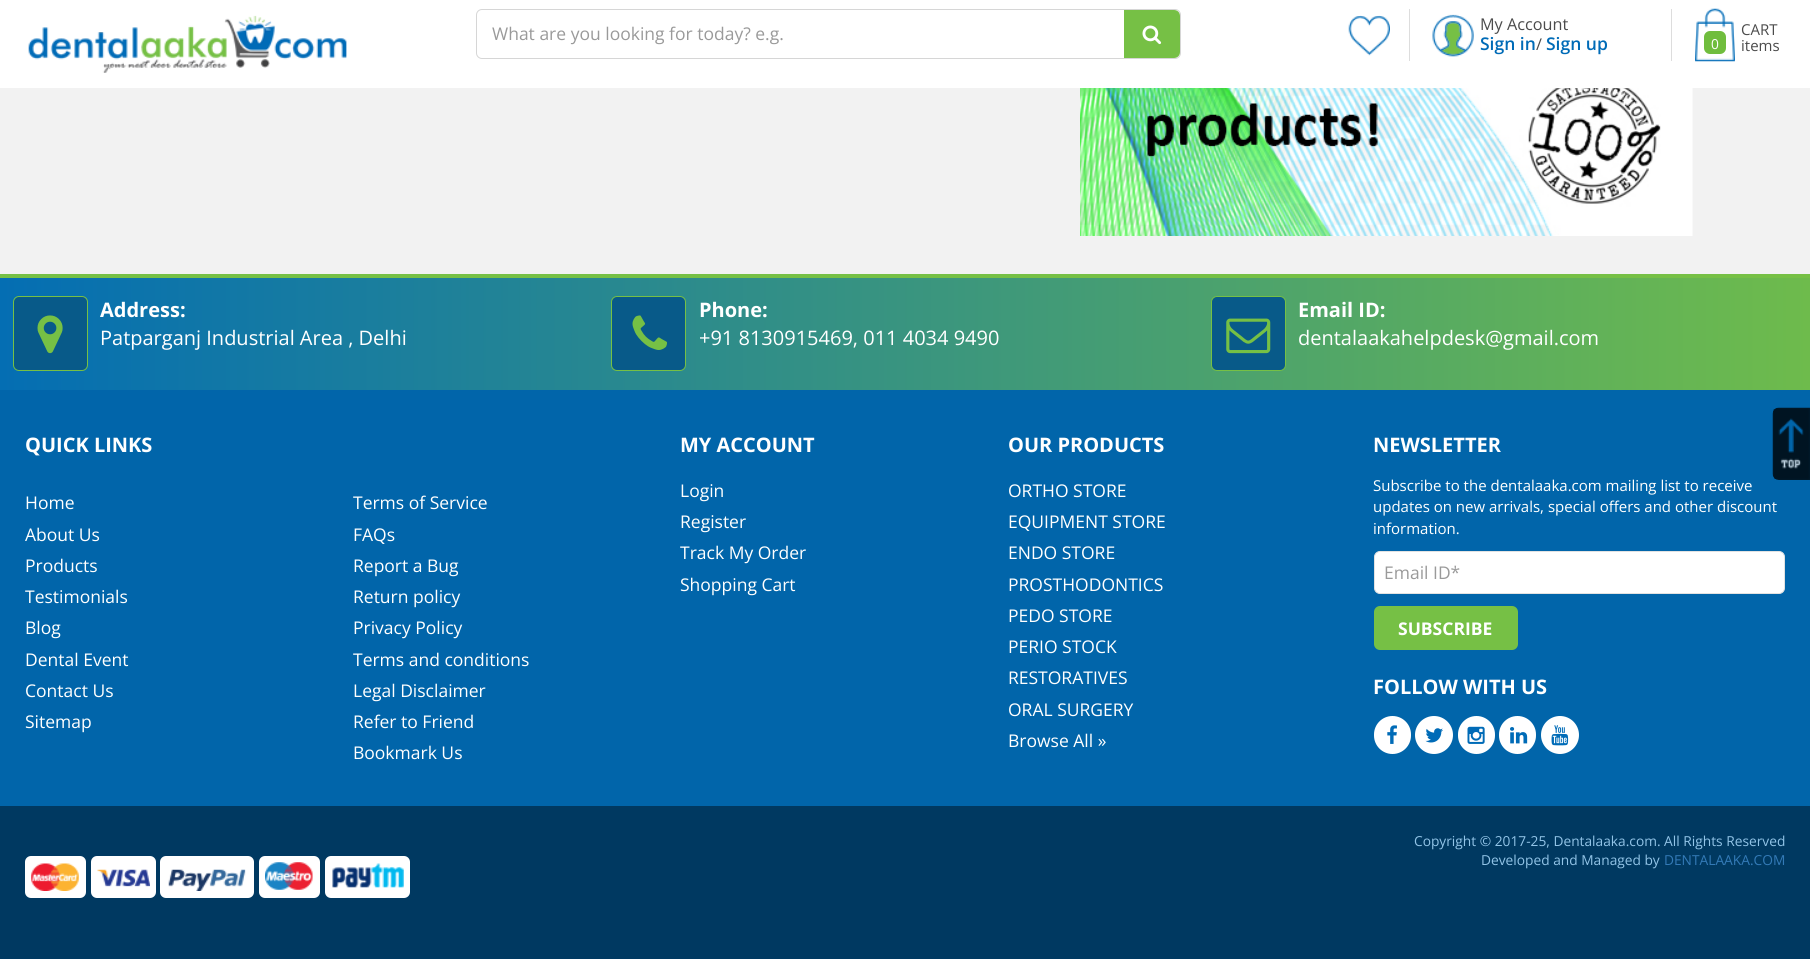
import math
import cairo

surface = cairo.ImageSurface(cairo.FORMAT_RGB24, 1810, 959)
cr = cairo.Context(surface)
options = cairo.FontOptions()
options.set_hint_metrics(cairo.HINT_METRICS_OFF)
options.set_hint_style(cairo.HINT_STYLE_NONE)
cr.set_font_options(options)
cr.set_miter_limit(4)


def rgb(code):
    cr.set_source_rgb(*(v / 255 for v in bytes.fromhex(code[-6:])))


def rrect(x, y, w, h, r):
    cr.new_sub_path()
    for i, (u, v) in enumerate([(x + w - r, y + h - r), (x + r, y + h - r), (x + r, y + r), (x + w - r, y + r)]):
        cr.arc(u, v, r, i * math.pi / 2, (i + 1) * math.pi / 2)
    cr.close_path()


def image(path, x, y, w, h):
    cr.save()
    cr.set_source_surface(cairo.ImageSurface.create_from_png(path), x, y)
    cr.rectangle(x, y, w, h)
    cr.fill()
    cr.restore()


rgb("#f2f2f2")
cr.paint()
rgb("#ffffff")
cr.rectangle(0, 0, 1810, 88)
cr.fill()
image("img/1.png", 28, 15, 319, 58)
rrect(476.5, 9.5, 704, 49, 5.5)
rgb("#d6d6d6")
cr.set_line_width(1)
cr.stroke()
cr.save()
rrect(478, 10, 702, 48, 5)
cr.clip()
rgb("#76c045")
cr.new_path()
cr.move_to(1124, 10)
cr.line_to(1174, 10)
cr.curve_to(1177.5, 10, 1180, 12.5, 1180, 16)
cr.line_to(1180, 52)
cr.curve_to(1180, 55.5, 1177.5, 58, 1174, 58)
cr.line_to(1124, 58)
cr.close_path()
cr.fill()
cr.restore()
image("img/2.png", 1142, 25, 20, 20)
image("img/3.png", 1348, 15, 42, 41)
rgb("#dddddd")
cr.rectangle(1409, 9, 1, 52)
cr.fill()
image("img/4.png", 1432, 14, 42, 43)
cr.rectangle(1671, 9, 1, 52)
cr.fill()
image("img/5.png", 1695, 8, 40, 54)
rgb("#70bd3d")
rrect(1704, 31, 22, 23, 6)
cr.fill()
image("img/6.png", 1080, 88, 613, 148)
gradient = cairo.LinearGradient(0, 334, 1810, 334)
gradient.add_color_stop_rgba(0, 0.016, 0.431, 0.702, 1)
gradient.add_color_stop_rgba(1, 0.431, 0.733, 0.298, 1)
cr.set_source(gradient)
cr.rectangle(0, 278, 1810, 112)
cr.fill()
rgb("#76c045")
cr.rectangle(0, 274, 1810, 4)
cr.fill()
rgb("#085a89")
rrect(13.5, 296.5, 74, 74, 5.5)
cr.fill_preserve()
rgb("#76c045")
cr.stroke()
image("img/7.png", 37, 315, 26, 39)
rgb("#085a89")
rrect(611.5, 296.5, 74, 74, 5.5)
cr.fill_preserve()
rgb("#76c045")
cr.stroke()
image("img/8.png", 632, 315, 35, 35)
rgb("#085a89")
rrect(1211.5, 296.5, 74, 74, 5.5)
cr.fill_preserve()
rgb("#76c045")
cr.stroke()
image("img/9.png", 1226, 318, 45, 36)
rgb("#0165aa")
cr.rectangle(0, 390, 1810, 416)
cr.fill()
rgb("#ffffff")
rrect(1374.5, 551.5, 410, 42, 5.5)
cr.fill_preserve()
rgb("#e2e2e2")
cr.stroke()
rgb("#76c045")
rrect(1374, 606, 144, 44, 6)
cr.fill()
rgb("#ffffff")
rrect(1375.5, 717.5, 34, 35, 17)
cr.fill_preserve()
cr.set_line_width(3)
cr.stroke()
image("img/10.png", 1387, 725, 10, 19)
cr.arc(1434, 735, 17.5, 0, 2 * math.pi)
cr.fill_preserve()
cr.stroke()
image("img/11.png", 1425, 728, 18, 15)
rrect(1459.5, 717.5, 34, 35, 17)
cr.fill_preserve()
cr.stroke()
image("img/12.png", 1467, 726, 18, 18)
rrect(1500.5, 717.5, 34, 35, 17)
cr.fill_preserve()
cr.stroke()
image("img/13.png", 1510, 727, 18, 17)
cr.arc(1560, 735, 17.5, 0, 2 * math.pi)
cr.fill_preserve()
cr.stroke()
image("img/14.png", 1551, 725, 18, 21)
rgb("#003961")
cr.rectangle(0, 806, 1810, 153)
cr.fill()
rgb("#ffffff")
rrect(25, 856, 61, 42, 6)
cr.fill()
image("img/15.png", 31, 863, 48, 28)
rrect(91, 856, 65, 42, 6)
cr.fill()
image("img/16.png", 97, 869, 53, 18)
rrect(160, 856, 94, 42, 6)
cr.fill()
image("img/17.png", 168, 869, 78, 22)
rrect(259, 856, 61, 42, 6)
cr.fill()
image("img/18.png", 265, 862, 48, 28)
rrect(325, 856, 85, 42, 6)
cr.fill()
image("img/19.png", 332, 863, 72, 25)
image("img/20.png", 1772, 407, 38, 73)
cr.select_font_face("Open Sans")
cr.set_font_size(17.5)
rgb("#9a9a9a")
cr.move_to(492, 40)
cr.show_text("What are you looking for today? e.g.")
cr.set_font_size(16.25)
rgb("#4b4b4b")
cr.move_to(1480, 30)
cr.show_text("My Account")
cr.select_font_face("Open Sans SemiBold")
cr.set_font_size(17.5)
rgb("#006bb7")
cr.move_to(1480, 50)
cr.show_text("Sign in")
cr.select_font_face("Open Sans")
cr.set_font_size(16.25)
rgb("#4b4b4b")
cr.move_to(1536, 50)
cr.show_text("/")
cr.select_font_face("Open Sans SemiBold")
cr.set_font_size(17.5)
rgb("#006bb7")
cr.move_to(1546, 50)
cr.show_text("Sign up")
cr.select_font_face("Open Sans")
cr.set_font_size(15)
rgb("#4b4b4b")
cr.move_to(1741, 35)
cr.show_text("CART")
cr.move_to(1741, 51)
cr.show_text("items")
cr.set_font_size(13.75)
rgb("#ffffff")
cr.move_to(1711, 49)
cr.show_text("0")
cr.select_font_face("Open Sans", cairo.FONT_SLANT_NORMAL, cairo.FONT_WEIGHT_BOLD)
cr.set_font_size(20)
cr.move_to(100, 317)
cr.show_text("Address:")
cr.select_font_face("Open Sans")
cr.move_to(100, 345)
cr.show_text("Patparganj Industrial Area , Delhi")
cr.select_font_face("Open Sans", cairo.FONT_SLANT_NORMAL, cairo.FONT_WEIGHT_BOLD)
cr.move_to(699, 317)
cr.show_text("Phone:")
cr.select_font_face("Open Sans")
cr.move_to(699, 345)
cr.show_text("+91 8130915469, 011 4034 9490")
cr.select_font_face("Open Sans", cairo.FONT_SLANT_NORMAL, cairo.FONT_WEIGHT_BOLD)
cr.move_to(1298, 317)
cr.show_text("Email ID:")
cr.select_font_face("Open Sans")
cr.move_to(1298, 345)
cr.show_text("dentalaakahelpdesk@gmail.com")
cr.select_font_face("Open Sans", cairo.FONT_SLANT_NORMAL, cairo.FONT_WEIGHT_BOLD)
cr.move_to(25, 452)
cr.show_text("QUICK LINKS")
cr.select_font_face("Open Sans")
cr.set_font_size(17.5)
for x, y, s in [
    (25, 509, "Home"),
    (25, 541, "About Us"),
    (25, 572, "Products"),
    (25, 603, "Testimonials"),
    (25, 634, "Blog"),
    (25, 666, "Dental Event"),
    (25, 697, "Contact Us"),
    (25, 728, "Sitemap"),
    (353, 509, "Terms of Service"),
    (353, 541, "FAQs"),
    (353, 572, "Report a Bug"),
    (353, 603, "Return policy"),
    (353, 634, "Privacy Policy"),
    (353, 666, "Terms and conditions"),
    (353, 697, "Legal Disclaimer"),
    (353, 728, "Refer to Friend"),
    (353, 759, "Bookmark Us"),
]:
    cr.move_to(x, y)
    cr.show_text(s)
cr.select_font_face("Open Sans", cairo.FONT_SLANT_NORMAL, cairo.FONT_WEIGHT_BOLD)
cr.set_font_size(20)
cr.move_to(680, 452)
cr.show_text("MY ACCOUNT")
cr.select_font_face("Open Sans")
cr.set_font_size(17.5)
for x, y, s in [
    (680, 497, "Login"),
    (680, 528, "Register"),
    (680, 559, "Track My Order"),
    (680, 591, "Shopping Cart"),
]:
    cr.move_to(x, y)
    cr.show_text(s)
cr.select_font_face("Open Sans", cairo.FONT_SLANT_NORMAL, cairo.FONT_WEIGHT_BOLD)
cr.set_font_size(20)
cr.move_to(1008, 452)
cr.show_text("OUR PRODUCTS")
cr.select_font_face("Open Sans")
cr.set_font_size(17.5)
for x, y, s in [
    (1008, 497, "ORTHO STORE"),
    (1008, 528, "EQUIPMENT STORE"),
    (1008, 559, "ENDO STORE"),
    (1008, 591, "PROSTHODONTICS"),
    (1008, 622, "PEDO STORE"),
    (1008, 653, "PERIO STOCK"),
    (1008, 684, "RESTORATIVES"),
    (1008, 716, "ORAL SURGERY"),
    (1008, 747, "Browse All »"),
]:
    cr.move_to(x, y)
    cr.show_text(s)
cr.select_font_face("Open Sans", cairo.FONT_SLANT_NORMAL, cairo.FONT_WEIGHT_BOLD)
cr.set_font_size(20)
cr.move_to(1373, 452)
cr.show_text("NEWSLETTER")
cr.select_font_face("Open Sans")
cr.set_font_size(15)
for x, y, s in [
    (1373, 491, "Subscribe to the dentalaaka.com mailing list to receive"),
    (1373, 512, "updates on new arrivals, special offers and other discount"),
    (1373, 534, "information."),
]:
    cr.move_to(x, y)
    cr.show_text(s)
cr.set_font_size(17.5)
rgb("#9a9a9a")
cr.move_to(1384, 579)
cr.show_text("Email ID*")
cr.select_font_face("Open Sans", cairo.FONT_SLANT_NORMAL, cairo.FONT_WEIGHT_BOLD)
rgb("#ffffff")
cr.move_to(1398, 635)
cr.show_text("SUBSCRIBE")
cr.set_font_size(20)
cr.move_to(1373, 694)
cr.show_text("FOLLOW WITH US")
cr.select_font_face("Open Sans")
cr.set_font_size(13.75)
rgb("#92c4e7")
cr.move_to(1414, 846)
cr.show_text("Copyright © 2017-25, Dentalaaka.com. All Rights Reserved")
cr.move_to(1481, 865)
cr.show_text("Developed and Managed by")
rgb("#337ab7")
cr.move_to(1664, 865)
cr.show_text("DENTALAAKA.COM")
surface.write_to_png("page.png")
